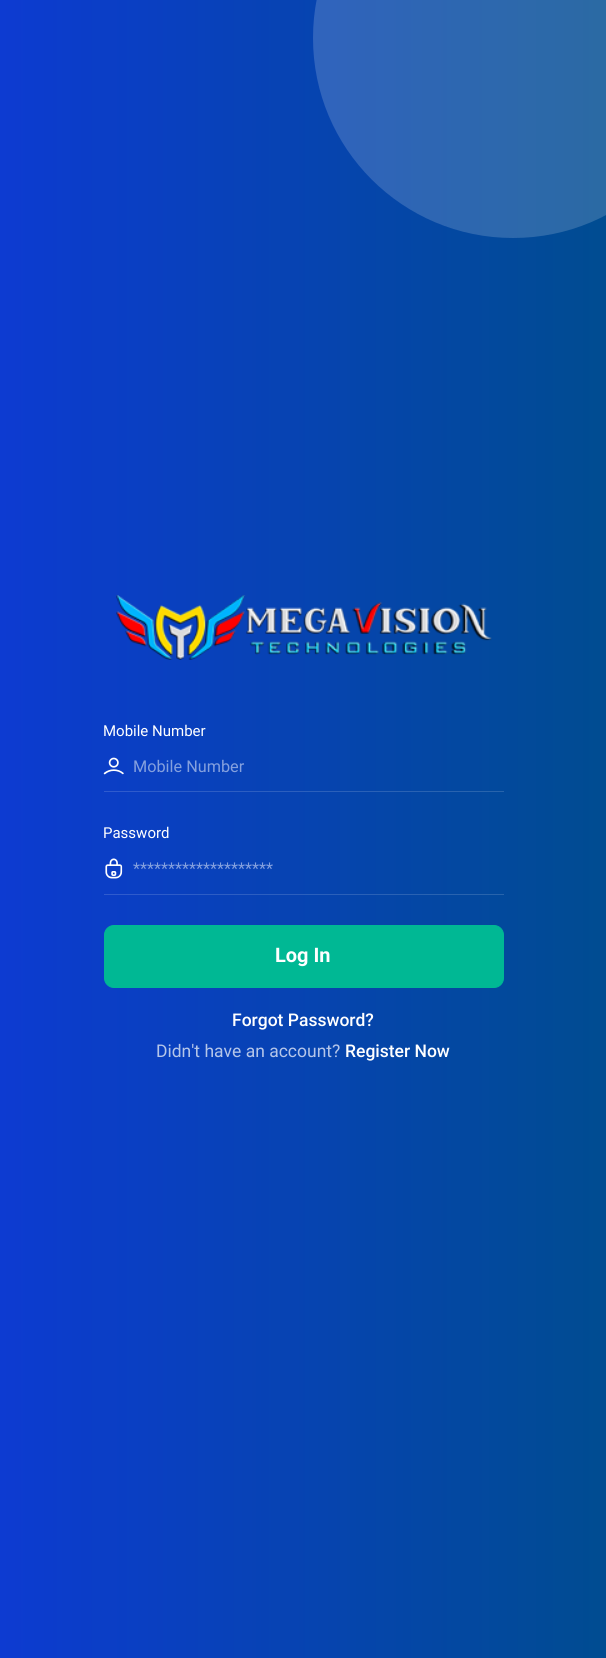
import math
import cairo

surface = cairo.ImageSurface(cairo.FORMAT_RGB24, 606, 1658)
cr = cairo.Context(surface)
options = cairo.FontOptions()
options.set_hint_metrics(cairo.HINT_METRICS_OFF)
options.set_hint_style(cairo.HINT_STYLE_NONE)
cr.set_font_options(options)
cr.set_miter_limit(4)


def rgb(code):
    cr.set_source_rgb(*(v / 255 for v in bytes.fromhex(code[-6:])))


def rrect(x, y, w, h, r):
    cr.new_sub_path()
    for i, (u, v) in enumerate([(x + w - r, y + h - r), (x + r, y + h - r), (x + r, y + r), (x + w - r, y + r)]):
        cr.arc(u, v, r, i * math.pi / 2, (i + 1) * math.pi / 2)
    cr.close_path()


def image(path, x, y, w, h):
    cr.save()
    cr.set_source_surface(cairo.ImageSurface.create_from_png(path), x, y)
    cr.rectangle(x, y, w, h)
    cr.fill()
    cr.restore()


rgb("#ffffff")
cr.paint()
gradient = cairo.LinearGradient(606, 829, 0, 829)
gradient.add_color_stop_rgba(0, 0, 0.298, 0.569, 1)
gradient.add_color_stop_rgba(1, 0.051, 0.231, 0.82, 1)
cr.set_source(gradient)
cr.rectangle(0, 0, 606, 1658)
cr.fill()
gradient = cairo.LinearGradient(606, 829, 0, 829)
gradient.add_color_stop_rgba(0, 0.149, 0.404, 0.635, 1)
gradient.add_color_stop_rgba(1, 0.192, 0.345, 0.847, 1)
cr.set_source(gradient)
cr.rectangle(104, 894, 400, 1)
cr.fill()
cr.rectangle(104, 791, 400, 1)
cr.fill()
cr.set_source_rgba(1, 1, 1, 0.17)
cr.arc(513, 38, 200, 0, 2 * math.pi)
cr.fill()
image("img/1.png", 116, 595, 376, 65)
image("img/2.png", 103, 757, 21, 18)
image("img/3.png", 105, 858, 18, 21)
rgb("#00b894")
rrect(104.5, 925.5, 399, 62, 9.5)
cr.fill_preserve()
cr.set_line_width(1)
cr.stroke()
cr.select_font_face("Roboto")
cr.set_font_size(15)
rgb("#ffffff")
cr.move_to(103, 736)
cr.show_text("Mobile Number")
cr.set_font_size(16.25)
rgb("#84a0de")
cr.move_to(133, 772)
cr.show_text("Mobile Number")
cr.set_font_size(15)
rgb("#ffffff")
cr.move_to(103, 838)
cr.show_text("Password")
cr.set_font_size(16.25)
rgb("#84a0de")
cr.move_to(133, 874)
cr.show_text("********************")
cr.select_font_face("Roboto", cairo.FONT_SLANT_NORMAL, cairo.FONT_WEIGHT_BOLD)
cr.set_font_size(20)
rgb("#ffffff")
cr.move_to(275, 962)
cr.show_text("Log In")
cr.select_font_face("Roboto Medium")
cr.set_font_size(17.5)
cr.move_to(232, 1026)
cr.show_text("Forgot Password?")
cr.select_font_face("Roboto")
rgb("#b5c6e9")
cr.move_to(156, 1057)
cr.show_text("Didn't have an account?")
cr.select_font_face("Roboto Medium")
rgb("#ffffff")
cr.move_to(345, 1057)
cr.show_text("Register Now")
surface.write_to_png("page.png")
